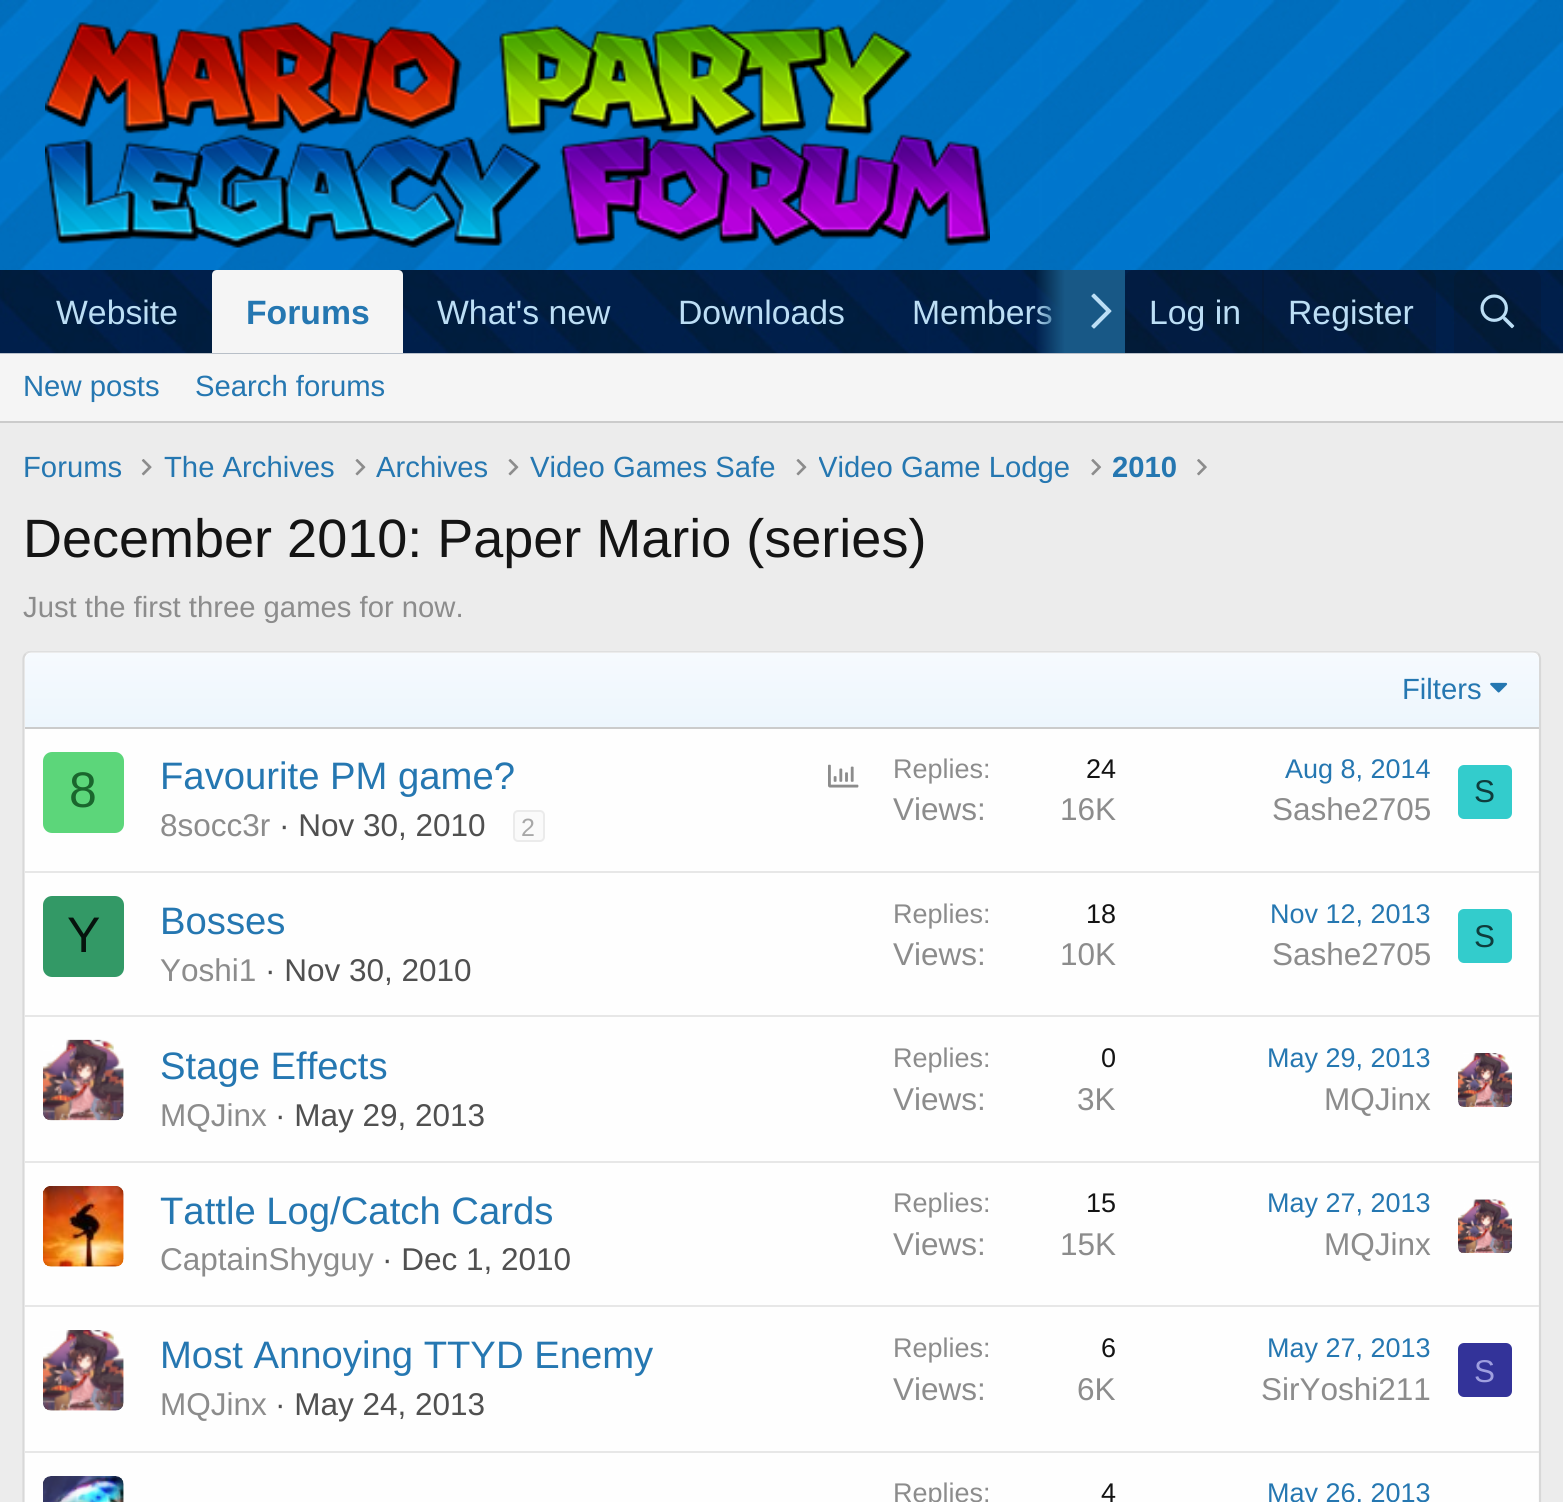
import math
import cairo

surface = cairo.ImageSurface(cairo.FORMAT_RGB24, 1563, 1502)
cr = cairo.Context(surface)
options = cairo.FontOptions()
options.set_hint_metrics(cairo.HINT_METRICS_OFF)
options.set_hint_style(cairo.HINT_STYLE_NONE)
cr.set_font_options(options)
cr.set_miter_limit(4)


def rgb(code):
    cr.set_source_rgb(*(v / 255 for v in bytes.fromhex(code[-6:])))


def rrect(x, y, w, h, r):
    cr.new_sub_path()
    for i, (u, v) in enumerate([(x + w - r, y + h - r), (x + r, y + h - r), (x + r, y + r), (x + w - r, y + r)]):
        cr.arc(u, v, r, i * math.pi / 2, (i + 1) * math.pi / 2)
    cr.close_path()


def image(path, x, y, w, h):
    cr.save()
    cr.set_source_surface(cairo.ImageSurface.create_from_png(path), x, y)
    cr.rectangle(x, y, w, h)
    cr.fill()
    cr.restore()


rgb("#ececec")
cr.paint()
image("img/1.png", 0, 0, 1563, 270)
image("img/2.png", 45, 22, 945, 226)
rgb("#f5f5f5")
cr.rectangle(0, 353, 1563, 68)
cr.fill()
image("img/3.png", 0, 270, 1563, 84)
cr.new_path()
cr.move_to(217, 270)
cr.line_to(398, 270)
cr.curve_to(401, 270, 403, 272, 403, 275)
cr.line_to(403, 353)
cr.line_to(212, 353)
cr.line_to(212, 275)
cr.curve_to(212, 272, 214, 270, 217, 270)
cr.close_path()
cr.fill()
cr.set_source_rgba(0.078, 0.078, 0.078, 0.15)
cr.new_path()
cr.move_to(1134, 270)
cr.line_to(1427, 270)
cr.curve_to(1432, 270, 1436, 274, 1436, 279)
cr.line_to(1436, 353)
cr.line_to(1125, 353)
cr.line_to(1125, 279)
cr.curve_to(1125, 274, 1129, 270, 1134, 270)
cr.close_path()
cr.fill()
cr.rectangle(1262, 270, 2, 83)
cr.fill()
cr.new_path()
cr.move_to(1463, 270)
cr.line_to(1532, 270)
cr.curve_to(1537, 270, 1541, 274, 1541, 279)
cr.line_to(1541, 353)
cr.line_to(1454, 353)
cr.line_to(1454, 279)
cr.curve_to(1454, 274, 1458, 270, 1463, 270)
cr.close_path()
cr.fill()
image("img/5.png", 1480, 294, 35, 35)
rgb("#cbcbcb")
cr.rectangle(0, 421, 1563, 2)
cr.fill()
image("img/6.png", 141, 459, 11, 17)
image("img/7.png", 355, 459, 11, 17)
image("img/7.png", 508, 459, 11, 17)
image("img/7.png", 796, 459, 11, 17)
image("img/8.png", 1091, 459, 11, 17)
image("img/9.png", 1197, 459, 10, 17)
rgb("#fefefe")
rrect(23, 650, 1518, 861, 9)
cr.fill()
cr.new_path()
cr.move_to(26, 653.5)
cr.curve_to(27.5, 652, 29.5, 651.5, 31.5, 651.5)
cr.line_to(1532, 651.5)
cr.curve_to(1534.5, 651.5, 1536.5, 652, 1538, 653.5)
rgb("#dfdfdf")
cr.set_line_width(2.2)
cr.stroke()
cr.new_path()
cr.move_to(1538, 653.5)
cr.curve_to(1539.5, 655, 1540, 657, 1540, 659)
cr.line_to(1540, 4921)
cr.curve_to(1540, 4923, 1539.5, 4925, 1538, 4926.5)
rgb("#d8d8d8")
cr.stroke()
cr.new_path()
cr.move_to(26, 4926.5)
cr.curve_to(24.5, 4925, 23.5, 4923, 23.5, 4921)
cr.line_to(23.5, 659)
cr.curve_to(23.5, 657, 24.5, 655, 26, 653.5)
cr.stroke()
gradient = cairo.LinearGradient(782, 727, 782, 653)
gradient.add_color_stop_rgba(0, 0.929, 0.965, 0.992, 1)
gradient.add_color_stop_rgba(1, 0.965, 0.98, 0.996, 1)
cr.set_source(gradient)
cr.new_path()
cr.move_to(32, 653)
cr.line_to(1532, 653)
cr.curve_to(1536, 653, 1539, 656, 1539, 660)
cr.line_to(1539, 727)
cr.line_to(25, 727)
cr.line_to(25, 660)
cr.curve_to(25, 656, 28, 653, 32, 653)
cr.close_path()
cr.fill()
rgb("#cbcbcb")
cr.rectangle(25, 727, 1514, 2)
cr.fill()
image("img/10.png", 1490, 682, 18, 11)
rgb("#5cd67a")
rrect(43, 752, 81, 81, 9)
cr.fill()
image("img/11.png", 828, 764, 31, 24)
rgb("#fafafa")
rrect(514, 811, 30, 30, 4)
cr.fill_preserve()
rgb("#ebebeb")
cr.set_line_width(2)
cr.stroke()
rgb("#33cccc")
rrect(1458, 765, 54, 54, 6)
cr.fill()
rgb("#e7e7e7")
cr.rectangle(25, 871, 1514, 2)
cr.fill()
rgb("#339966")
rrect(43, 896, 81, 81, 9)
cr.fill()
rgb("#33cccc")
rrect(1458, 909, 54, 54, 6)
cr.fill()
rgb("#e7e7e7")
cr.rectangle(25, 1015, 1514, 2)
cr.fill()
image("img/12.png", 43, 1039, 81, 82)
image("img/13.png", 1458, 1053, 54, 54)
cr.rectangle(25, 1161, 1514, 2)
cr.fill()
image("img/14.png", 43, 1186, 81, 81)
image("img/15.png", 1458, 1199, 54, 54)
cr.rectangle(25, 1305, 1514, 2)
cr.fill()
image("img/16.png", 43, 1330, 81, 81)
rgb("#333399")
rrect(1458, 1343, 54, 54, 6)
cr.fill()
rgb("#e7e7e7")
cr.rectangle(25, 1451, 1514, 2)
cr.fill()
image("img/17.png", 43, 1476, 81, 26)
cr.select_font_face("Liberation Sans")
cr.set_font_size(33.75)
rgb("#bcdef5")
cr.move_to(56, 324)
cr.show_text("Website")
cr.select_font_face("Liberation Sans", cairo.FONT_SLANT_NORMAL, cairo.FONT_WEIGHT_BOLD)
rgb("#2577b1")
cr.move_to(246, 324)
cr.show_text("Forums")
cr.select_font_face("Liberation Sans")
rgb("#bcdef5")
for x, y, s in [
    (437, 324, "What's new"),
    (678, 324, "Downloads"),
    (912, 324, "Members"),
]:
    cr.move_to(x, y)
    cr.show_text(s)
gradient = cairo.LinearGradient(1035, 312, 1125, 312)
gradient.add_color_stop_rgba(0, 0.094, 0.345, 0.525, 0)
gradient.add_color_stop_rgba(0.33, 0.094, 0.345, 0.525, 1)
cr.set_source(gradient)
cr.rectangle(1036, 270, 89, 83)
cr.fill()
image("img/4.png", 1091, 293, 21, 36)
rgb("#bcdef5")
cr.move_to(1149, 324)
cr.show_text("Log in")
cr.move_to(1288, 324)
cr.show_text("Register")
cr.set_font_size(29.25)
rgb("#2577b1")
for x, y, s in [
    (23, 396, "New posts"),
    (195, 396, "Search forums"),
    (23, 477, "Forums"),
    (164, 477, "The Archives"),
    (376, 477, "Archives"),
    (530, 477, "Video Games Safe"),
]:
    cr.move_to(x, y)
    cr.show_text(s)
cr.save()
cr.rectangle(819, 446, 252, 45)
cr.clip()
cr.move_to(818, 477)
cr.show_text("Video Game Lodge")
cr.restore()
cr.select_font_face("Liberation Sans", cairo.FONT_SLANT_NORMAL, cairo.FONT_WEIGHT_BOLD)
cr.move_to(1112, 477)
cr.show_text("2010")
cr.select_font_face("Liberation Sans")
cr.set_font_size(54)
rgb("#141414")
cr.move_to(23, 557)
cr.show_text("December 2010: Paper Mario (series)")
cr.set_font_size(29.25)
rgb("#8c8c8c")
cr.move_to(23, 617)
cr.show_text("Just the first three games for now.")
rgb("#2577b1")
cr.move_to(1402, 699)
cr.show_text("Filters")
cr.set_font_size(50)
rgb("#1a662d")
cr.move_to(69, 807)
cr.show_text("8")
cr.set_font_size(38.25)
rgb("#2577b1")
cr.move_to(160, 789)
cr.show_text("Favourite PM game?")
cr.set_font_size(31.5)
rgb("#8c8c8c")
cr.move_to(160, 836)
cr.show_text("8socc3r")
rgb("#505050")
cr.move_to(279, 836)
cr.show_text("· Nov 30, 2010")
cr.set_font_size(25)
rgb("#a7a7a7")
cr.move_to(521, 836)
cr.show_text("2")
cr.set_font_size(27)
rgb("#8c8c8c")
cr.move_to(893, 778)
cr.show_text("Replies:")
rgb("#141414")
cr.move_to(1086, 778)
cr.show_text("24")
cr.set_font_size(31.5)
rgb("#8c8c8c")
cr.move_to(893, 820)
cr.show_text("Views:")
cr.move_to(1060, 820)
cr.show_text("16K")
cr.set_font_size(27)
rgb("#2577b1")
cr.move_to(1285, 778)
cr.show_text("Aug 8, 2014")
cr.set_font_size(31.5)
rgb("#8c8c8c")
cr.move_to(1272, 820)
cr.show_text("Sashe2705")
rgb("#0f3d3d")
cr.move_to(1474, 802)
cr.show_text("S")
cr.set_font_size(50)
rgb("#06130d")
cr.move_to(67, 952)
cr.show_text("Y")
cr.set_font_size(38.25)
rgb("#2577b1")
cr.move_to(160, 934)
cr.show_text("Bosses")
cr.set_font_size(31.5)
rgb("#8c8c8c")
cr.move_to(160, 981)
cr.show_text("Yoshi1")
rgb("#505050")
cr.move_to(265, 981)
cr.show_text("· Nov 30, 2010")
cr.set_font_size(27)
rgb("#8c8c8c")
cr.move_to(893, 923)
cr.show_text("Replies:")
rgb("#141414")
cr.move_to(1086, 923)
cr.show_text("18")
cr.set_font_size(31.5)
rgb("#8c8c8c")
cr.move_to(893, 965)
cr.show_text("Views:")
cr.move_to(1060, 965)
cr.show_text("10K")
cr.set_font_size(27)
rgb("#2577b1")
cr.move_to(1270, 923)
cr.show_text("Nov 12, 2013")
cr.set_font_size(31.5)
rgb("#8c8c8c")
cr.move_to(1272, 965)
cr.show_text("Sashe2705")
rgb("#0f3d3d")
cr.move_to(1474, 947)
cr.show_text("S")
cr.set_font_size(38.25)
rgb("#2577b1")
cr.move_to(160, 1079)
cr.show_text("Stage Effects")
cr.set_font_size(31.5)
rgb("#8c8c8c")
cr.move_to(160, 1126)
cr.show_text("MQJinx")
rgb("#505050")
cr.move_to(275, 1126)
cr.show_text("· May 29, 2013")
cr.set_font_size(27)
rgb("#8c8c8c")
cr.move_to(893, 1067)
cr.show_text("Replies:")
rgb("#141414")
cr.move_to(1101, 1067)
cr.show_text("0")
cr.set_font_size(31.5)
rgb("#8c8c8c")
cr.move_to(893, 1110)
cr.show_text("Views:")
cr.move_to(1077, 1110)
cr.show_text("3K")
cr.set_font_size(27)
rgb("#2577b1")
cr.move_to(1267, 1067)
cr.show_text("May 29, 2013")
cr.set_font_size(31.5)
rgb("#8c8c8c")
cr.move_to(1324, 1110)
cr.show_text("MQJinx")
cr.set_font_size(38.25)
rgb("#2577b1")
cr.move_to(160, 1224)
cr.show_text("Tattle Log/Catch Cards")
cr.set_font_size(31.5)
rgb("#8c8c8c")
cr.move_to(160, 1270)
cr.show_text("CaptainShyguy")
rgb("#505050")
cr.move_to(382, 1270)
cr.show_text("· Dec 1, 2010")
cr.set_font_size(27)
rgb("#8c8c8c")
cr.move_to(893, 1212)
cr.show_text("Replies:")
rgb("#141414")
cr.move_to(1086, 1212)
cr.show_text("15")
cr.set_font_size(31.5)
rgb("#8c8c8c")
cr.move_to(893, 1255)
cr.show_text("Views:")
cr.move_to(1060, 1255)
cr.show_text("15K")
cr.set_font_size(27)
rgb("#2577b1")
cr.move_to(1267, 1212)
cr.show_text("May 27, 2013")
cr.set_font_size(31.5)
rgb("#8c8c8c")
cr.move_to(1324, 1255)
cr.show_text("MQJinx")
cr.set_font_size(38.25)
rgb("#2577b1")
cr.move_to(160, 1368)
cr.show_text("Most Annoying TTYD Enemy")
cr.set_font_size(31.5)
rgb("#8c8c8c")
cr.move_to(160, 1415)
cr.show_text("MQJinx")
rgb("#505050")
cr.move_to(275, 1415)
cr.show_text("· May 24, 2013")
cr.set_font_size(27)
rgb("#8c8c8c")
cr.move_to(893, 1357)
cr.show_text("Replies:")
rgb("#141414")
cr.move_to(1101, 1357)
cr.show_text("6")
cr.set_font_size(31.5)
rgb("#8c8c8c")
cr.move_to(893, 1400)
cr.show_text("Views:")
cr.move_to(1077, 1400)
cr.show_text("6K")
cr.set_font_size(27)
rgb("#2577b1")
cr.move_to(1267, 1357)
cr.show_text("May 27, 2013")
cr.set_font_size(31.5)
rgb("#8c8c8c")
cr.move_to(1261, 1400)
cr.show_text("SirYoshi211")
rgb("#9f9fdf")
cr.move_to(1474, 1382)
cr.show_text("S")
cr.set_font_size(27)
rgb("#8c8c8c")
cr.move_to(893, 1502)
cr.show_text("Replies:")
rgb("#141414")
cr.move_to(1101, 1502)
cr.show_text("4")
rgb("#2577b1")
cr.move_to(1267, 1502)
cr.show_text("May 26, 2013")
surface.write_to_png("page.png")
